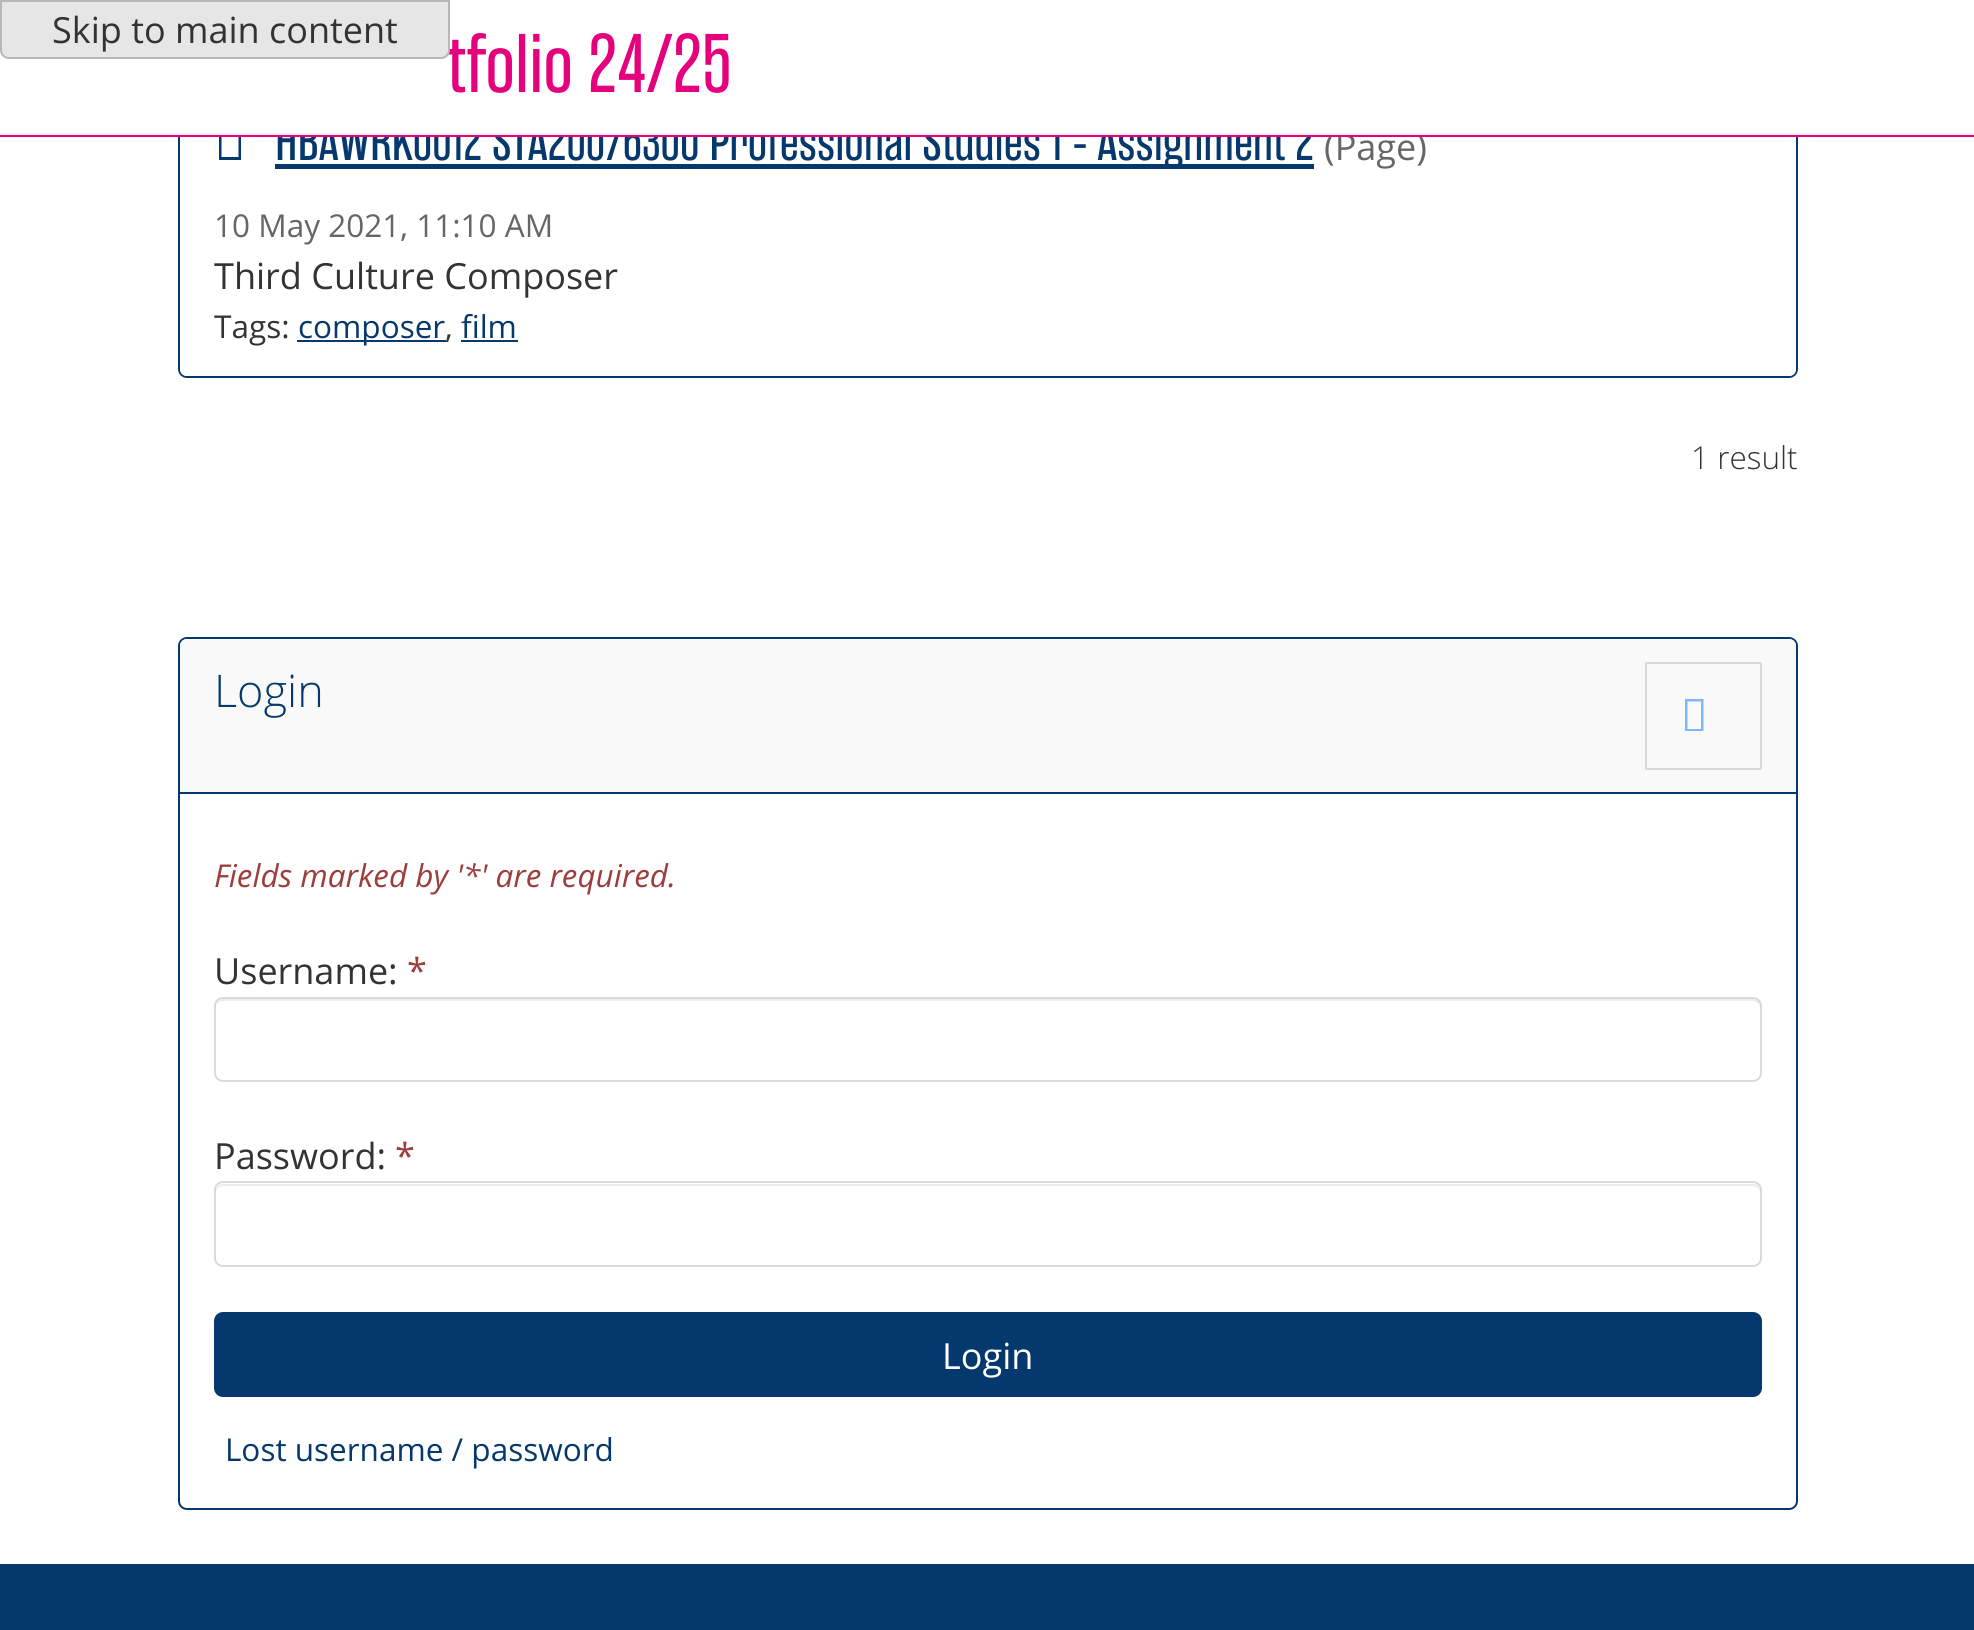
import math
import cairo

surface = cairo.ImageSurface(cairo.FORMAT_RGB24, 1974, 1630)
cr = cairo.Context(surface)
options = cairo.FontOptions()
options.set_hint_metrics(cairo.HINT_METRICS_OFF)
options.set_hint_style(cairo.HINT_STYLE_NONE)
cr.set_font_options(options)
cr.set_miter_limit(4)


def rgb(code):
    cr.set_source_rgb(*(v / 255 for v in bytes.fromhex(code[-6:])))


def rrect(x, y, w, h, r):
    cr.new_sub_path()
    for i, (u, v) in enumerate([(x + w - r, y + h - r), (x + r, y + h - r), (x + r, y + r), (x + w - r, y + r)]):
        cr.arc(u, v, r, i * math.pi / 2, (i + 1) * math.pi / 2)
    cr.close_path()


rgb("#ffffff")
cr.paint()
rrect(179, -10, 1618, 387, 8)
rgb("#05386c")
cr.stroke()
rgb("#ffffff")
cr.new_path()
cr.move_to(180, 79)
cr.line_to(1796, 79)
cr.line_to(1796, 369)
cr.curve_to(1796, 373, 1793, 376, 1789, 376)
cr.line_to(187, 376)
cr.curve_to(183, 376, 180, 373, 180, 369)
cr.close_path()
cr.fill()
rgb("#05386c")
cr.new_path()
cr.move_to(219, 160)
cr.line_to(219, 121)
cr.line_to(241, 121)
cr.line_to(241, 160)
cr.close_path()
cr.move_to(221.5, 157)
cr.line_to(238.5, 157)
cr.line_to(238.5, 124)
cr.line_to(221.5, 124)
cr.close_path()
cr.fill()
for x, y, w, h, color in [
    (275, 164, 1039, 5, "#05386c"),
    (297, 340, 149, 2, "#05386c"),
    (461, 340, 57, 2, "#05386c"),
]:
    rgb(color)
    cr.rectangle(x, y, w, h)
    cr.fill()
rrect(179, 638, 1618, 871, 8)
cr.stroke()
rgb("#f9f9f9")
cr.new_path()
cr.move_to(187, 639)
cr.line_to(1789, 639)
cr.curve_to(1793, 639, 1796, 642, 1796, 646)
cr.line_to(1796, 794)
cr.line_to(180, 794)
cr.line_to(180, 646)
cr.curve_to(180, 642, 183, 639, 187, 639)
cr.close_path()
cr.fill()
rgb("#05386c")
cr.rectangle(180, 792, 1616, 2)
cr.fill()
cr.rectangle(1646, 663, 115, 106)
rgb("#dadada")
cr.stroke()
rgb("#80b6fb")
cr.new_path()
cr.move_to(1685, 731)
cr.line_to(1685, 699)
cr.line_to(1703.5, 699)
cr.line_to(1703.5, 731)
cr.close_path()
cr.move_to(1687.5, 729)
cr.line_to(1701, 729)
cr.line_to(1701, 701.5)
cr.line_to(1687.5, 701.5)
cr.close_path()
cr.fill()
rgb("#ececec")
cr.new_path()
cr.move_to(223, 1001)
cr.line_to(1753, 1001)
cr.curve_to(1756, 1001, 1760, 1004, 1760, 1008)
cr.curve_to(1760, 1004, 1758, 999, 1753, 999)
cr.line_to(223, 999)
cr.curve_to(218, 999, 216, 1004, 216, 1008)
cr.curve_to(216, 1004, 219, 1001, 223, 1001)
cr.close_path()
cr.fill()
rrect(215, 998, 1546, 83, 8)
rgb("#dadada")
cr.stroke()
rgb("#ececec")
cr.new_path()
cr.move_to(223, 1186)
cr.line_to(1753, 1186)
cr.curve_to(1756, 1186, 1760, 1189, 1760, 1192)
cr.curve_to(1760, 1188, 1758, 1184, 1753, 1184)
cr.line_to(223, 1184)
cr.curve_to(218, 1184, 216, 1188, 216, 1192)
cr.curve_to(216, 1189, 219, 1186, 223, 1186)
cr.close_path()
cr.fill()
rrect(215, 1182, 1546, 84, 8)
rgb("#dadada")
cr.stroke()
rgb("#05386c")
rrect(215, 1313, 1546, 83, 8)
cr.fill_preserve()
cr.stroke()
cr.rectangle(0, 1564, 1974, 66)
cr.fill()
cr.select_font_face("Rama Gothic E")
cr.set_font_size(54)
cr.move_to(275, 160)
cr.show_text("HBAWRK0012 STA20076300 Professional Studies 1 - Assignment 2")
rgb("#ffffff")
cr.rectangle(178, 0, 1620, 133)
cr.fill()
cr.set_font_size(83)
rgb("#e5007e")
cr.move_to(447, 92)
cr.show_text("tfolio 24/25")
rgb("#e6e6e6")
cr.new_path()
cr.move_to(1, 1)
cr.line_to(449, 1)
cr.line_to(449, 50)
cr.curve_to(449, 54.5, 445.5, 58, 441, 58)
cr.line_to(9, 58)
cr.curve_to(4.5, 58, 1, 54.5, 1, 50)
cr.close_path()
cr.fill_preserve()
rgb("#b8b8b8")
cr.stroke()
cr.select_font_face("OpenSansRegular")
cr.set_font_size(36)
rgb("#333333")
cr.move_to(52, 43)
cr.show_text("Skip to main content")
rgb("#666666")
cr.move_to(1324, 160)
cr.show_text("(Page)")
rgb("#eeeeee")
cr.rectangle(0, 133, 1974, 2)
cr.fill()
rgb("#e5007e")
cr.rectangle(0, 135, 1974, 2)
cr.fill()
cr.set_font_size(31.5)
rgb("#666666")
cr.move_to(214, 237)
cr.show_text("10 May 2021, 11:10 AM")
cr.set_font_size(36)
rgb("#333333")
cr.move_to(214, 289)
cr.show_text("Third Culture Composer")
cr.set_font_size(31.5)
cr.move_to(214, 338)
cr.show_text("Tags:")
rgb("#05386c")
cr.move_to(298, 338)
cr.show_text("composer")
rgb("#333333")
cr.move_to(445, 338)
cr.show_text(",")
rgb("#05386c")
cr.move_to(461, 338)
cr.show_text("film")
cr.select_font_face("Open Sans Light")
rgb("#333333")
cr.move_to(1691, 469)
cr.show_text("1 result")
cr.set_font_size(45)
rgb("#05386c")
cr.move_to(214, 707)
cr.show_text("Login")
cr.select_font_face("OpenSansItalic", cairo.FONT_SLANT_ITALIC)
cr.set_font_size(31.5)
rgb("#9b3e3c")
cr.move_to(214, 887)
cr.show_text("Fields marked by '*' are required.")
cr.select_font_face("OpenSansRegular")
cr.set_font_size(36)
rgb("#333333")
cr.move_to(214, 984)
cr.show_text("Username:")
rgb("#9b3e3c")
cr.move_to(407, 984)
cr.show_text("*")
rgb("#333333")
cr.move_to(214, 1169)
cr.show_text("Password:")
rgb("#9b3e3c")
cr.move_to(395, 1169)
cr.show_text("*")
rgb("#ffffff")
cr.move_to(942, 1369)
cr.show_text("Login")
cr.set_font_size(31.5)
rgb("#05386c")
cr.move_to(225, 1461)
cr.show_text("Lost username / password")
surface.write_to_png("page.png")
